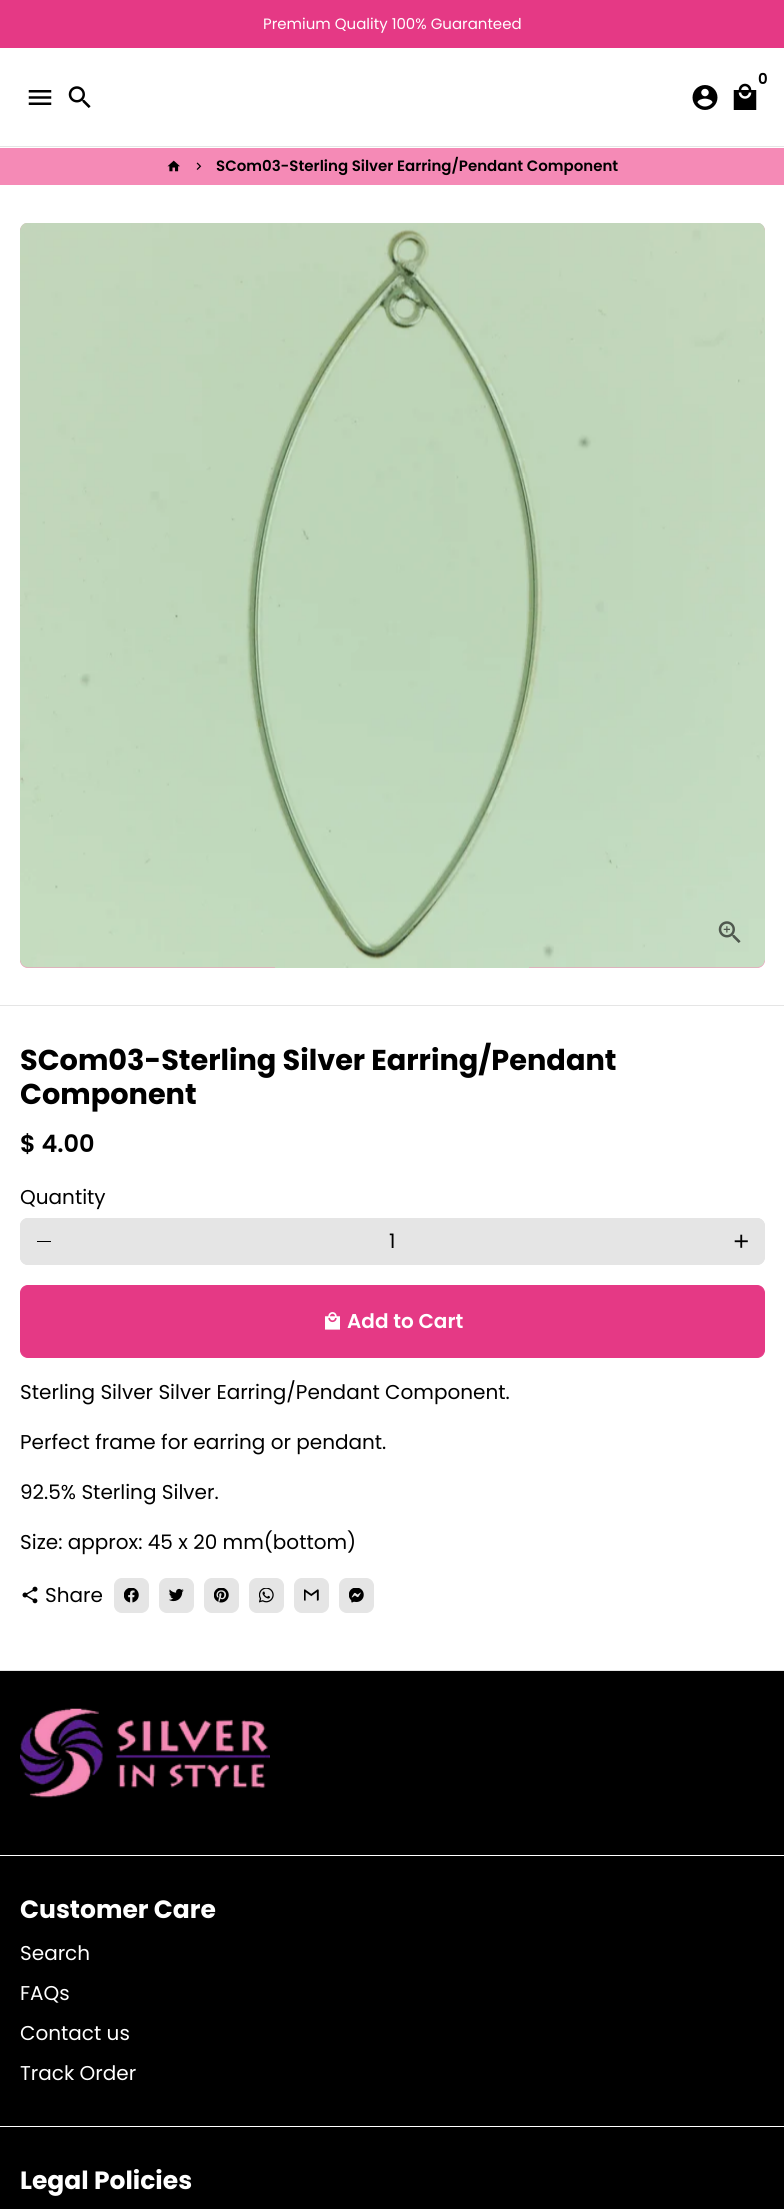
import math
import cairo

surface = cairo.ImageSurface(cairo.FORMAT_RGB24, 784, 2209)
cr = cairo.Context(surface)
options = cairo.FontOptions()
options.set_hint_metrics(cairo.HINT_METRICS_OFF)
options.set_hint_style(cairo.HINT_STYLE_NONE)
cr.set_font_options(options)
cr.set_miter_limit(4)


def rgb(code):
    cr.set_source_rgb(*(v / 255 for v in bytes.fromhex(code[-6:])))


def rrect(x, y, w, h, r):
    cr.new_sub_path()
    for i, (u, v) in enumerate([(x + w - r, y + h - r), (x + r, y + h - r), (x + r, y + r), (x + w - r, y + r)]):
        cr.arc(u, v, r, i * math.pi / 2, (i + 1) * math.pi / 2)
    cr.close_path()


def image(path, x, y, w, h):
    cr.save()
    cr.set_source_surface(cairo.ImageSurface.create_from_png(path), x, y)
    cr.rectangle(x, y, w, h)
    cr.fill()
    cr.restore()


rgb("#ffffff")
cr.paint()
rgb("#e53985")
cr.rectangle(0, 0, 784, 48)
cr.fill()
rgb("#e5e5e5")
cr.rectangle(0, 146, 784, 1)
cr.fill()
image("img/1.png", 733, 83, 24, 27)
image("img/2.png", 692, 85, 26, 25)
image("img/3.png", 28, 90, 24, 15)
image("img/4.png", 68, 86, 23, 22)
rgb("#f58ab6")
cr.rectangle(0, 148, 784, 37)
cr.fill()
image("img/5.png", 167, 160, 13, 12)
image("img/6.png", 196, 162, 6, 8)
rrect(20, 223, 745, 745, 8)
cr.fill()
image("img/7.png", 20, 223, 745, 745)
image("img/8.png", 718, 921, 23, 22)
rgb("#e5e5e5")
cr.rectangle(0, 1005, 784, 1)
cr.fill()
rrect(20.5, 1218.5, 744, 46, 7.5)
cr.fill_preserve()
cr.set_line_width(1)
cr.stroke()
rrect(20, 1218, 48, 47, 8)
cr.fill()
rgb("#000000")
cr.rectangle(37, 1241, 14, 1)
cr.fill()
rgb("#e5e5e5")
rrect(718, 1218, 47, 47, 8)
cr.fill()
image("img/9.png", 734, 1234, 14, 14)
rgb("#e53985")
rrect(20.5, 1285.5, 744, 72, 7.5)
cr.fill_preserve()
cr.stroke()
image("img/10.png", 325, 1312, 15, 18)
image("img/11.png", 22, 1586, 16, 18)
rgb("#e5e5e5")
rrect(114.5, 1578.5, 34, 34, 7.5)
cr.fill_preserve()
cr.stroke()
image("img/12.png", 124, 1588, 15, 15)
rrect(159.5, 1578.5, 34, 34, 7.5)
cr.fill_preserve()
cr.stroke()
image("img/13.png", 169, 1588, 15, 14)
rrect(204.5, 1578.5, 34, 34, 7.5)
cr.fill_preserve()
cr.stroke()
image("img/14.png", 214, 1588, 15, 15)
rrect(249.5, 1578.5, 34, 34, 7.5)
cr.fill_preserve()
cr.stroke()
image("img/15.png", 259, 1588, 15, 15)
rrect(294.5, 1578.5, 34, 34, 7.5)
cr.fill_preserve()
cr.stroke()
image("img/16.png", 304, 1589, 15, 12)
rrect(339.5, 1578.5, 34, 34, 7.5)
cr.fill_preserve()
cr.stroke()
image("img/17.png", 349, 1588, 15, 15)
cr.rectangle(0, 1670, 784, 1)
cr.fill()
rgb("#000000")
cr.rectangle(0, 1671, 784, 538)
cr.fill()
image("img/18.png", 20, 1708, 250, 90)
rgb("#ffffff")
cr.rectangle(0, 1855, 784, 1)
cr.fill()
cr.rectangle(0, 2126, 784, 1)
cr.fill()
cr.select_font_face("Poppins")
cr.set_font_size(15)
cr.move_to(263, 29)
cr.show_text("Premium Quality 100% Guaranteed")
cr.select_font_face("Poppins SemiBold")
rgb("#000000")
cr.move_to(758, 84)
cr.show_text("0")
cr.move_to(216, 171)
cr.show_text("SCom03-Sterling Silver Earring/Pendant Component")
cr.select_font_face("Poppins", cairo.FONT_SLANT_NORMAL, cairo.FONT_WEIGHT_BOLD)
cr.set_font_size(28.75)
cr.move_to(20, 1070)
cr.show_text("SCom03-Sterling Silver Earring/Pendant")
cr.move_to(20, 1104)
cr.show_text("Component")
cr.select_font_face("Poppins SemiBold")
cr.set_font_size(24)
cr.move_to(20, 1152)
cr.show_text("$ 4.00")
cr.select_font_face("Poppins")
cr.set_font_size(20)
cr.move_to(20, 1204)
cr.show_text("Quantity")
cr.move_to(389, 1248)
cr.show_text("1")
cr.select_font_face("Poppins SemiBold")
rgb("#ffffff")
cr.move_to(347, 1328)
cr.show_text("Add to Cart")
cr.select_font_face("Poppins")
rgb("#000000")
for x, y, s in [
    (20, 1399, "Sterling Silver Silver Earring/Pendant Component."),
    (20, 1449, "Perfect frame for earring or pendant."),
    (20, 1499, "92.5% Sterling Silver."),
    (20, 1549, "Size: approx: 45 x 20 mm(bottom)"),
    (45, 1602, "Share"),
]:
    cr.move_to(x, y)
    cr.show_text(s)
cr.select_font_face("Poppins", cairo.FONT_SLANT_NORMAL, cairo.FONT_WEIGHT_BOLD)
cr.set_font_size(25)
rgb("#ffffff")
cr.move_to(20, 1918)
cr.show_text("Customer Care")
cr.select_font_face("Poppins")
cr.set_font_size(20)
for x, y, s in [
    (20, 1960, "Search"),
    (20, 2000, "FAQs"),
    (20, 2040, "Contact us"),
    (20, 2080, "Track Order"),
]:
    cr.move_to(x, y)
    cr.show_text(s)
cr.select_font_face("Poppins", cairo.FONT_SLANT_NORMAL, cairo.FONT_WEIGHT_BOLD)
cr.set_font_size(25)
cr.move_to(20, 2189)
cr.show_text("Legal Policies")
surface.write_to_png("page.png")
